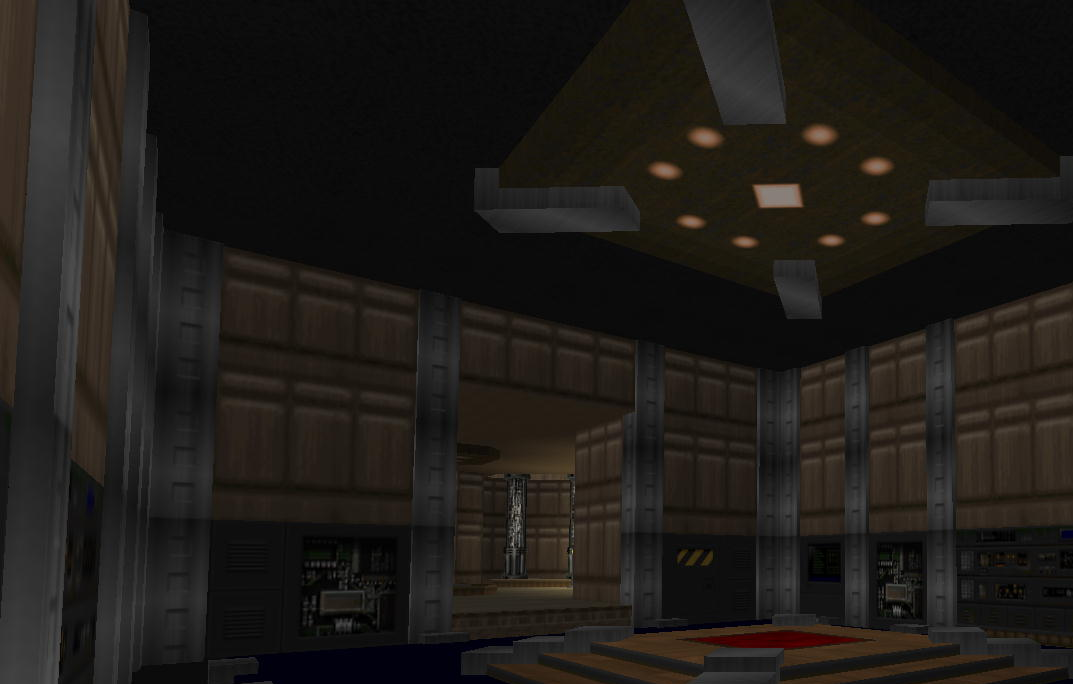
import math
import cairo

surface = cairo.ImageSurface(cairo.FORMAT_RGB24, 1073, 684)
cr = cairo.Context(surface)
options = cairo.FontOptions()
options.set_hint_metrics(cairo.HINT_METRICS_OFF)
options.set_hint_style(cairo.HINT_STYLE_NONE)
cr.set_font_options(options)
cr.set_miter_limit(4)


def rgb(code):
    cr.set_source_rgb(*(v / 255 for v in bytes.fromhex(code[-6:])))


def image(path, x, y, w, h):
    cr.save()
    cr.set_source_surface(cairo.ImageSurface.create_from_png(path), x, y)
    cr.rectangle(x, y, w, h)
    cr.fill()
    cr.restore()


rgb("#ffffff")
cr.paint()
image("img/1.png", 0, 0, 1073, 684)
surface.write_to_png("page.png")
